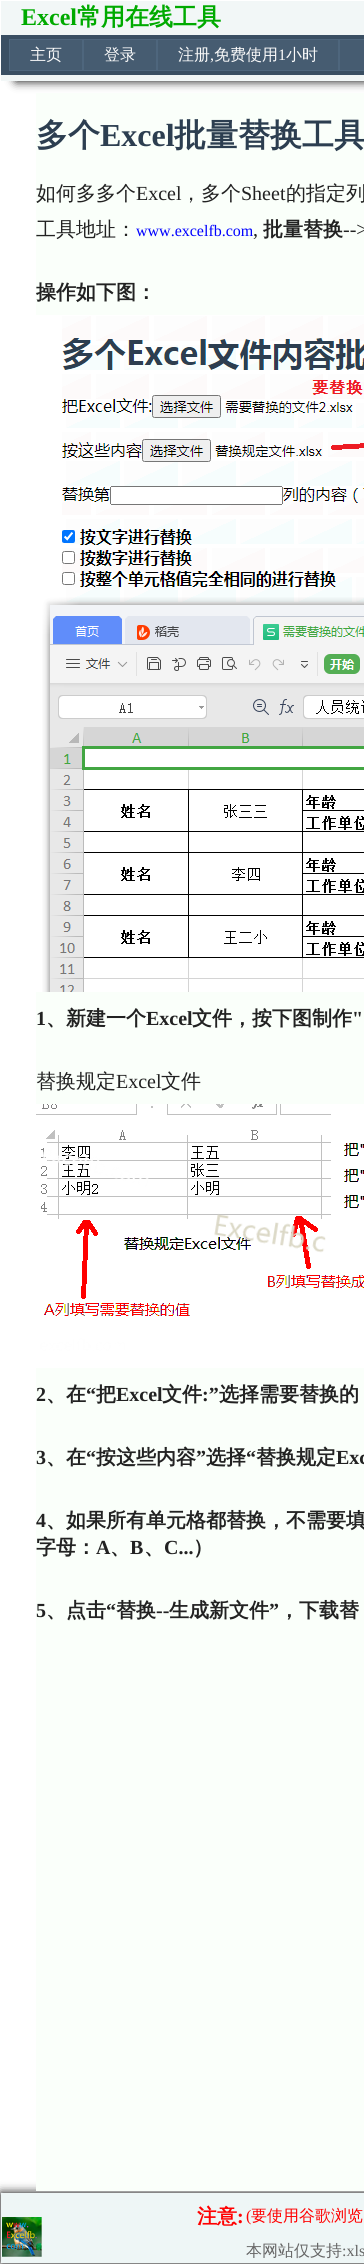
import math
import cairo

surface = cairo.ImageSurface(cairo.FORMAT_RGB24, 364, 2264)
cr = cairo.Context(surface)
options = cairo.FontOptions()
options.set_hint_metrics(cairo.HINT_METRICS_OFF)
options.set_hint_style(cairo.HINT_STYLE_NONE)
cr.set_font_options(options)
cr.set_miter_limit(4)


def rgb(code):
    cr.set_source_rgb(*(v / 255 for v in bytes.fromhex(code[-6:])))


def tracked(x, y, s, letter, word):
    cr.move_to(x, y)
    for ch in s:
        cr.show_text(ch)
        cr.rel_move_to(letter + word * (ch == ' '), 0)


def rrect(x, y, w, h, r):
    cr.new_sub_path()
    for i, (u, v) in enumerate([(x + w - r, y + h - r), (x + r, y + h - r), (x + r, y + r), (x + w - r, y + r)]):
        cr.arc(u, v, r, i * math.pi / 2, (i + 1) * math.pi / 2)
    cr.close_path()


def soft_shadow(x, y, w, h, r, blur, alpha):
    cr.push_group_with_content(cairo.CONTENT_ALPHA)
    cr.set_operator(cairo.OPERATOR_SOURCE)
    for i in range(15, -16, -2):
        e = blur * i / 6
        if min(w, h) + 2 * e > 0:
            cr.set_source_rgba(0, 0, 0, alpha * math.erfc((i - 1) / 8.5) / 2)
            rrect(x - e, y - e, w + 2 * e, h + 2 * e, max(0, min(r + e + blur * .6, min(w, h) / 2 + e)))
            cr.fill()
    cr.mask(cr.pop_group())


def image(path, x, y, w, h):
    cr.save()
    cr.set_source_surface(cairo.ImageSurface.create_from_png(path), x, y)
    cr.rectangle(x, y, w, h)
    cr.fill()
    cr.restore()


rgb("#ffffff")
cr.paint()
rgb("#000000")
soft_shadow(16, 31, 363, 50, 0, 5, 1)
rgb("#f2f7f7")
cr.rectangle(1, 1, 363, 80)
cr.fill()
rgb("#3a4f63")
cr.rectangle(1, 35, 363, 40)
cr.fill()
rgb("#465c71")
cr.rectangle(9.5, 39.5, 73, 31)
cr.fill_preserve()
rgb("#4e667d")
cr.set_line_width(1)
cr.stroke()
rgb("#465c71")
cr.rectangle(83.5, 39.5, 73, 31)
cr.fill_preserve()
rgb("#4e667d")
cr.stroke()
rgb("#465c71")
cr.rectangle(157.5, 39.5, 181, 31)
cr.fill_preserve()
rgb("#4e667d")
cr.stroke()
rgb("#465c71")
cr.rectangle(339.5, 39.5, 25, 31)
cr.fill_preserve()
rgb("#4e667d")
cr.stroke()
rgb("#000000")
soft_shadow(1, 2193, 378, 70, 0, 5, 1)
rgb("#fafffa")
cr.rectangle(36, 93, 328, 2098)
cr.fill()
image("img/1.png", 36, 315, 328, 677)
image("img/2.png", 36, 1104, 328, 264)
rgb("#eef6f6")
cr.rectangle(1, 2193, 363, 70)
cr.fill()
image("img/3.png", 2, 2217, 40, 40)
cr.select_font_face("Liberation Serif", cairo.FONT_SLANT_NORMAL, cairo.FONT_WEIGHT_BOLD)
cr.set_font_size(24)
rgb("#00aa00")
cr.move_to(21, 25)
cr.show_text("Excel")
cr.select_font_face("WenQuanYi Zen Hei", cairo.FONT_SLANT_NORMAL, cairo.FONT_WEIGHT_BOLD)
cr.move_to(77, 25)
cr.show_text("常用在线工具")
cr.select_font_face("WenQuanYi Zen Hei Medium")
cr.set_font_size(16)
rgb("#fafafa")
for x, y, s in [
    (30, 60, "主页"),
    (104, 60, "登录"),
    (178, 60, "注册"),
    (214, 60, "免费使用"),
]:
    cr.move_to(x, y)
    cr.show_text(s)
cr.select_font_face("Liberation Serif")
cr.move_to(278, 60)
cr.show_text("1")
cr.select_font_face("WenQuanYi Zen Hei Medium")
cr.move_to(286, 60)
cr.show_text("小时")
cr.select_font_face("Liberation Serif")
cr.move_to(210, 60)
cr.show_text(",")
cr.select_font_face("WenQuanYi Zen Hei", cairo.FONT_SLANT_NORMAL, cairo.FONT_WEIGHT_BOLD)
cr.set_font_size(32)
rgb("#2c3e50")
cr.move_to(36, 146)
cr.show_text("多个")
cr.select_font_face("Liberation Serif", cairo.FONT_SLANT_NORMAL, cairo.FONT_WEIGHT_BOLD)
cr.move_to(100, 146)
cr.show_text("Excel")
cr.select_font_face("WenQuanYi Zen Hei", cairo.FONT_SLANT_NORMAL, cairo.FONT_WEIGHT_BOLD)
cr.move_to(174, 146)
cr.show_text("批量替换工具")
cr.select_font_face("WenQuanYi Zen Hei Medium")
cr.set_font_size(20)
rgb("#222222")
cr.move_to(36, 200)
cr.show_text("如何多多个")
cr.select_font_face("Liberation Serif")
cr.move_to(136, 200)
cr.show_text("Excel")
cr.select_font_face("WenQuanYi Zen Hei Medium")
cr.move_to(181, 200)
cr.show_text("，多个")
cr.select_font_face("Liberation Serif")
cr.move_to(241, 200)
cr.show_text("Sheet")
cr.select_font_face("WenQuanYi Zen Hei Medium")
cr.move_to(286, 200)
cr.show_text("的指定列")
cr.move_to(36, 236)
cr.show_text("工具地址：")
cr.select_font_face("Liberation Serif")
cr.set_font_size(16)
rgb("#0000ff")
cr.move_to(136, 236)
cr.show_text("www.excelfb.com")
cr.select_font_face("WenQuanYi Zen Hei", cairo.FONT_SLANT_NORMAL, cairo.FONT_WEIGHT_BOLD)
cr.set_font_size(20)
rgb("#222222")
cr.move_to(263, 236)
cr.show_text("批量替换")
cr.select_font_face("Liberation Serif")
cr.move_to(343, 236)
cr.show_text("-->")
cr.move_to(253, 236)
cr.show_text(",")
cr.select_font_face("WenQuanYi Zen Hei", cairo.FONT_SLANT_NORMAL, cairo.FONT_WEIGHT_BOLD)
cr.move_to(36, 299)
cr.show_text("操作如下图：")
cr.select_font_face("Liberation Serif", cairo.FONT_SLANT_NORMAL, cairo.FONT_WEIGHT_BOLD)
cr.move_to(36, 1025)
cr.show_text("1")
cr.select_font_face("WenQuanYi Zen Hei", cairo.FONT_SLANT_NORMAL, cairo.FONT_WEIGHT_BOLD)
cr.move_to(46, 1025)
cr.show_text("、新建一个")
cr.select_font_face("Liberation Serif", cairo.FONT_SLANT_NORMAL, cairo.FONT_WEIGHT_BOLD)
cr.move_to(146, 1025)
cr.show_text("Excel")
cr.select_font_face("WenQuanYi Zen Hei", cairo.FONT_SLANT_NORMAL, cairo.FONT_WEIGHT_BOLD)
cr.move_to(192, 1025)
cr.show_text("文件，按下图制作")
cr.select_font_face("Liberation Serif", cairo.FONT_SLANT_NORMAL, cairo.FONT_WEIGHT_BOLD)
cr.move_to(352, 1025)
cr.show_text("\"")
cr.select_font_face("WenQuanYi Zen Hei Medium")
cr.move_to(36, 1088)
cr.show_text("替换规定")
cr.select_font_face("Liberation Serif")
cr.move_to(116, 1088)
cr.show_text("Excel")
cr.select_font_face("WenQuanYi Zen Hei Medium")
cr.move_to(161, 1088)
cr.show_text("文件")
cr.select_font_face("Liberation Serif", cairo.FONT_SLANT_NORMAL, cairo.FONT_WEIGHT_BOLD)
cr.move_to(36, 1401)
cr.show_text("2")
cr.select_font_face("WenQuanYi Zen Hei", cairo.FONT_SLANT_NORMAL, cairo.FONT_WEIGHT_BOLD)
cr.move_to(46, 1401)
cr.show_text("、在")
cr.select_font_face("Liberation Serif", cairo.FONT_SLANT_NORMAL, cairo.FONT_WEIGHT_BOLD)
cr.move_to(86, 1401)
cr.show_text("“")
cr.select_font_face("WenQuanYi Zen Hei", cairo.FONT_SLANT_NORMAL, cairo.FONT_WEIGHT_BOLD)
cr.move_to(96, 1401)
cr.show_text("把")
cr.select_font_face("Liberation Serif", cairo.FONT_SLANT_NORMAL, cairo.FONT_WEIGHT_BOLD)
cr.move_to(116, 1401)
cr.show_text("Excel")
cr.select_font_face("WenQuanYi Zen Hei", cairo.FONT_SLANT_NORMAL, cairo.FONT_WEIGHT_BOLD)
cr.move_to(162, 1401)
cr.show_text("文件")
cr.select_font_face("Liberation Serif", cairo.FONT_SLANT_NORMAL, cairo.FONT_WEIGHT_BOLD)
cr.move_to(202, 1401)
cr.show_text(":”")
cr.select_font_face("WenQuanYi Zen Hei", cairo.FONT_SLANT_NORMAL, cairo.FONT_WEIGHT_BOLD)
cr.move_to(219, 1401)
cr.show_text("选择需要替换的")
cr.select_font_face("Liberation Serif", cairo.FONT_SLANT_NORMAL, cairo.FONT_WEIGHT_BOLD)
cr.move_to(36, 1464)
cr.show_text("3")
cr.select_font_face("WenQuanYi Zen Hei", cairo.FONT_SLANT_NORMAL, cairo.FONT_WEIGHT_BOLD)
cr.move_to(46, 1464)
cr.show_text("、在")
cr.select_font_face("Liberation Serif", cairo.FONT_SLANT_NORMAL, cairo.FONT_WEIGHT_BOLD)
cr.move_to(86, 1464)
cr.show_text("“")
cr.select_font_face("WenQuanYi Zen Hei", cairo.FONT_SLANT_NORMAL, cairo.FONT_WEIGHT_BOLD)
cr.move_to(96, 1464)
cr.show_text("按这些内容")
cr.select_font_face("Liberation Serif", cairo.FONT_SLANT_NORMAL, cairo.FONT_WEIGHT_BOLD)
cr.move_to(196, 1464)
cr.show_text("”")
cr.select_font_face("WenQuanYi Zen Hei", cairo.FONT_SLANT_NORMAL, cairo.FONT_WEIGHT_BOLD)
cr.move_to(206, 1464)
cr.show_text("选择")
cr.select_font_face("Liberation Serif", cairo.FONT_SLANT_NORMAL, cairo.FONT_WEIGHT_BOLD)
cr.move_to(246, 1464)
cr.show_text("“")
cr.select_font_face("WenQuanYi Zen Hei", cairo.FONT_SLANT_NORMAL, cairo.FONT_WEIGHT_BOLD)
cr.move_to(256, 1464)
cr.show_text("替换规定")
cr.select_font_face("Liberation Serif", cairo.FONT_SLANT_NORMAL, cairo.FONT_WEIGHT_BOLD)
cr.move_to(336, 1464)
cr.show_text("Exc")
cr.move_to(36, 1527)
cr.show_text("4")
cr.select_font_face("WenQuanYi Zen Hei", cairo.FONT_SLANT_NORMAL, cairo.FONT_WEIGHT_BOLD)
cr.move_to(46, 1527)
cr.show_text("、如果所有单元格都替换，不需要填")
cr.move_to(36, 1554)
cr.show_text("字母：")
cr.select_font_face("Liberation Serif", cairo.FONT_SLANT_NORMAL, cairo.FONT_WEIGHT_BOLD)
cr.move_to(96, 1554)
cr.show_text("A")
cr.select_font_face("WenQuanYi Zen Hei", cairo.FONT_SLANT_NORMAL, cairo.FONT_WEIGHT_BOLD)
cr.move_to(110, 1554)
cr.show_text("、")
cr.select_font_face("Liberation Serif", cairo.FONT_SLANT_NORMAL, cairo.FONT_WEIGHT_BOLD)
cr.move_to(130, 1554)
cr.show_text("B")
cr.select_font_face("WenQuanYi Zen Hei", cairo.FONT_SLANT_NORMAL, cairo.FONT_WEIGHT_BOLD)
cr.move_to(144, 1554)
cr.show_text("、")
cr.select_font_face("Liberation Serif", cairo.FONT_SLANT_NORMAL, cairo.FONT_WEIGHT_BOLD)
cr.move_to(164, 1554)
cr.show_text("C...")
cr.select_font_face("WenQuanYi Zen Hei", cairo.FONT_SLANT_NORMAL, cairo.FONT_WEIGHT_BOLD)
cr.move_to(193, 1554)
cr.show_text("）")
cr.select_font_face("Liberation Serif", cairo.FONT_SLANT_NORMAL, cairo.FONT_WEIGHT_BOLD)
cr.move_to(36, 1617)
cr.show_text("5")
cr.select_font_face("WenQuanYi Zen Hei", cairo.FONT_SLANT_NORMAL, cairo.FONT_WEIGHT_BOLD)
cr.move_to(46, 1617)
cr.show_text("、点击")
cr.select_font_face("Liberation Serif", cairo.FONT_SLANT_NORMAL, cairo.FONT_WEIGHT_BOLD)
cr.move_to(106, 1617)
cr.show_text("“")
cr.select_font_face("WenQuanYi Zen Hei", cairo.FONT_SLANT_NORMAL, cairo.FONT_WEIGHT_BOLD)
cr.move_to(116, 1617)
cr.show_text("替换")
cr.move_to(169, 1617)
cr.show_text("生成新文件")
cr.select_font_face("Liberation Serif", cairo.FONT_SLANT_NORMAL, cairo.FONT_WEIGHT_BOLD)
cr.move_to(269, 1617)
cr.show_text("”")
cr.select_font_face("WenQuanYi Zen Hei", cairo.FONT_SLANT_NORMAL, cairo.FONT_WEIGHT_BOLD)
cr.move_to(279, 1617)
cr.show_text("，下载替")
cr.select_font_face("Liberation Serif", cairo.FONT_SLANT_NORMAL, cairo.FONT_WEIGHT_BOLD)
cr.move_to(156, 1617)
cr.show_text("--")
cr.select_font_face("WenQuanYi Zen Hei", cairo.FONT_SLANT_NORMAL, cairo.FONT_WEIGHT_BOLD)
rgb("#ff0000")
cr.move_to(197, 2223)
cr.show_text("注意")
cr.select_font_face("Liberation Serif", cairo.FONT_SLANT_NORMAL, cairo.FONT_WEIGHT_BOLD)
cr.move_to(237, 2223)
cr.show_text(":")
cr.select_font_face("Liberation Serif")
cr.set_font_size(16)
cr.move_to(246, 2221)
cr.show_text("(")
cr.select_font_face("WenQuanYi Zen Hei Medium")
tracked(251, 2221, "要使用谷歌浏览", 0, -1)
rgb("#666666")
cr.move_to(246, 2256)
cr.show_text("本网站仅支持")
cr.select_font_face("Liberation Serif")
cr.move_to(342, 2256)
cr.show_text(":xls")
surface.write_to_png("page.png")
